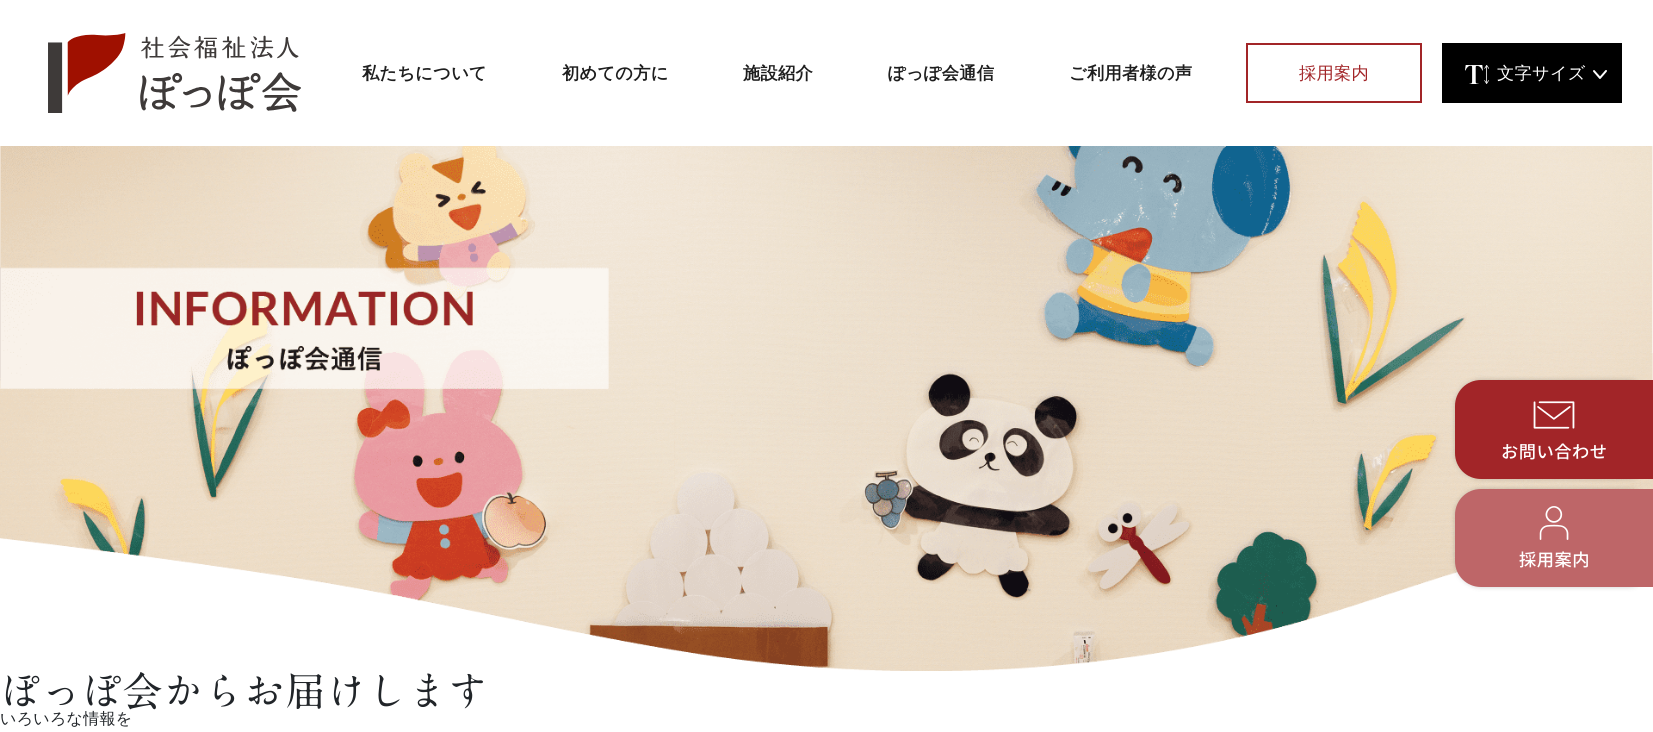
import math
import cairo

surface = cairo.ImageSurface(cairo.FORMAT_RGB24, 1653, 732)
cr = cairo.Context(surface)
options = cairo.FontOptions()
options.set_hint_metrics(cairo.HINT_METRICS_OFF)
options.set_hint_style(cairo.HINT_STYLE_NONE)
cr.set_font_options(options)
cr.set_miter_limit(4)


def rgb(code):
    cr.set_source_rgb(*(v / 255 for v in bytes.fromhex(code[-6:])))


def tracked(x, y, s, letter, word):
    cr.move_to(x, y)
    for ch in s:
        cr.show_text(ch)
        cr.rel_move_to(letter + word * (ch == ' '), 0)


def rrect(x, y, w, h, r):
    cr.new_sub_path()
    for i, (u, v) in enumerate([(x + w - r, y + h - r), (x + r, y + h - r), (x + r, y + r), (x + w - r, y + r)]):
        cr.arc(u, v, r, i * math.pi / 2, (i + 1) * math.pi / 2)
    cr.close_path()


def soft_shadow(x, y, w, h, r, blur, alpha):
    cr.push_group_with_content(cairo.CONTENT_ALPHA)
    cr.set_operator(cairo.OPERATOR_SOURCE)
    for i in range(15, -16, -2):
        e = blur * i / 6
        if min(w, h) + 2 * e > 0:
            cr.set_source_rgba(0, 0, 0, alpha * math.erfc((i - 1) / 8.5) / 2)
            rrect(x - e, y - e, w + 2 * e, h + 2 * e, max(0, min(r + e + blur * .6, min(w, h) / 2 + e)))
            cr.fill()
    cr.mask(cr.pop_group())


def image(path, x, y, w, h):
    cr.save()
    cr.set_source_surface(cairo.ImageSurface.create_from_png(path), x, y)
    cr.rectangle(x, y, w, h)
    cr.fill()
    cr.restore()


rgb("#ffffff")
cr.paint()
image("img/1.png", 48, 33, 253, 80)
cr.rectangle(1247, 44, 174, 58)
rgb("#a22528")
cr.stroke()
rgb("#000000")
cr.rectangle(1442, 43, 180, 60)
cr.fill()
image("img/2.png", 1465, 65, 24, 19)
image("img/3.png", 1593, 70, 14, 9)
image("img/6.png", 0, 146, 1653, 525)
rgb("#000000")
soft_shadow(1455, 380, 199, 99, 26, 2.5, 0.2)
rgb("#a22528")
cr.new_path()
cr.move_to(1481, 380)
cr.line_to(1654, 380)
cr.line_to(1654, 479)
cr.line_to(1481, 479)
cr.curve_to(1466.5, 479, 1455, 467.5, 1455, 453)
cr.line_to(1455, 406)
cr.curve_to(1455, 391.5, 1466.5, 380, 1481, 380)
cr.close_path()
cr.fill()
image("img/4.png", 1533, 401, 42, 28)
rgb("#000000")
soft_shadow(1455, 489, 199, 98, 26, 2.5, 0.2)
rgb("#be6668")
cr.new_path()
cr.move_to(1481, 489)
cr.line_to(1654, 489)
cr.line_to(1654, 587)
cr.line_to(1481, 587)
cr.curve_to(1466.5, 587, 1455, 575.5, 1455, 561)
cr.line_to(1455, 515)
cr.curve_to(1455, 500.5, 1466.5, 489, 1481, 489)
cr.close_path()
cr.fill()
image("img/5.png", 1539, 506, 30, 34)
cr.select_font_face("WenQuanYi Zen Hei", cairo.FONT_SLANT_NORMAL, cairo.FONT_WEIGHT_BOLD)
cr.set_font_size(17.25)
rgb("#1e1e1e")
for x, y, s in [
    (362, 79, "私たちについて"),
    (562, 79, "初めての方に"),
    (743, 79, "施設紹介"),
    (888, 79, "ぽっぽ会通信"),
    (1069, 79, "ご利用者様の声"),
]:
    tracked(x, y, s, 0.25, 0)
cr.select_font_face("WenQuanYi Zen Hei Medium")
rgb("#a22528")
tracked(1299, 79, "採用案内", 0.25, 0)
rgb("#ffffff")
tracked(1497, 79, "文字サイズ", 0.25, 0)
cr.select_font_face("Noto Sans JP Medium")
tracked(1501, 458, "お問い合わせ", 0.5, 0)
tracked(1519, 566, "採用案内", 0.5, 0)
cr.select_font_face("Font")
cr.set_font_size(40)
rgb("#212529")
tracked(0, 706, "ぽっぽ会からお届けします", 0.75, 0)
cr.select_font_face("WenQuanYi Zen Hei Medium")
cr.set_font_size(16)
tracked(0, 724, "いろいろな情報を", 0.25, 0)
surface.write_to_png("page.png")
